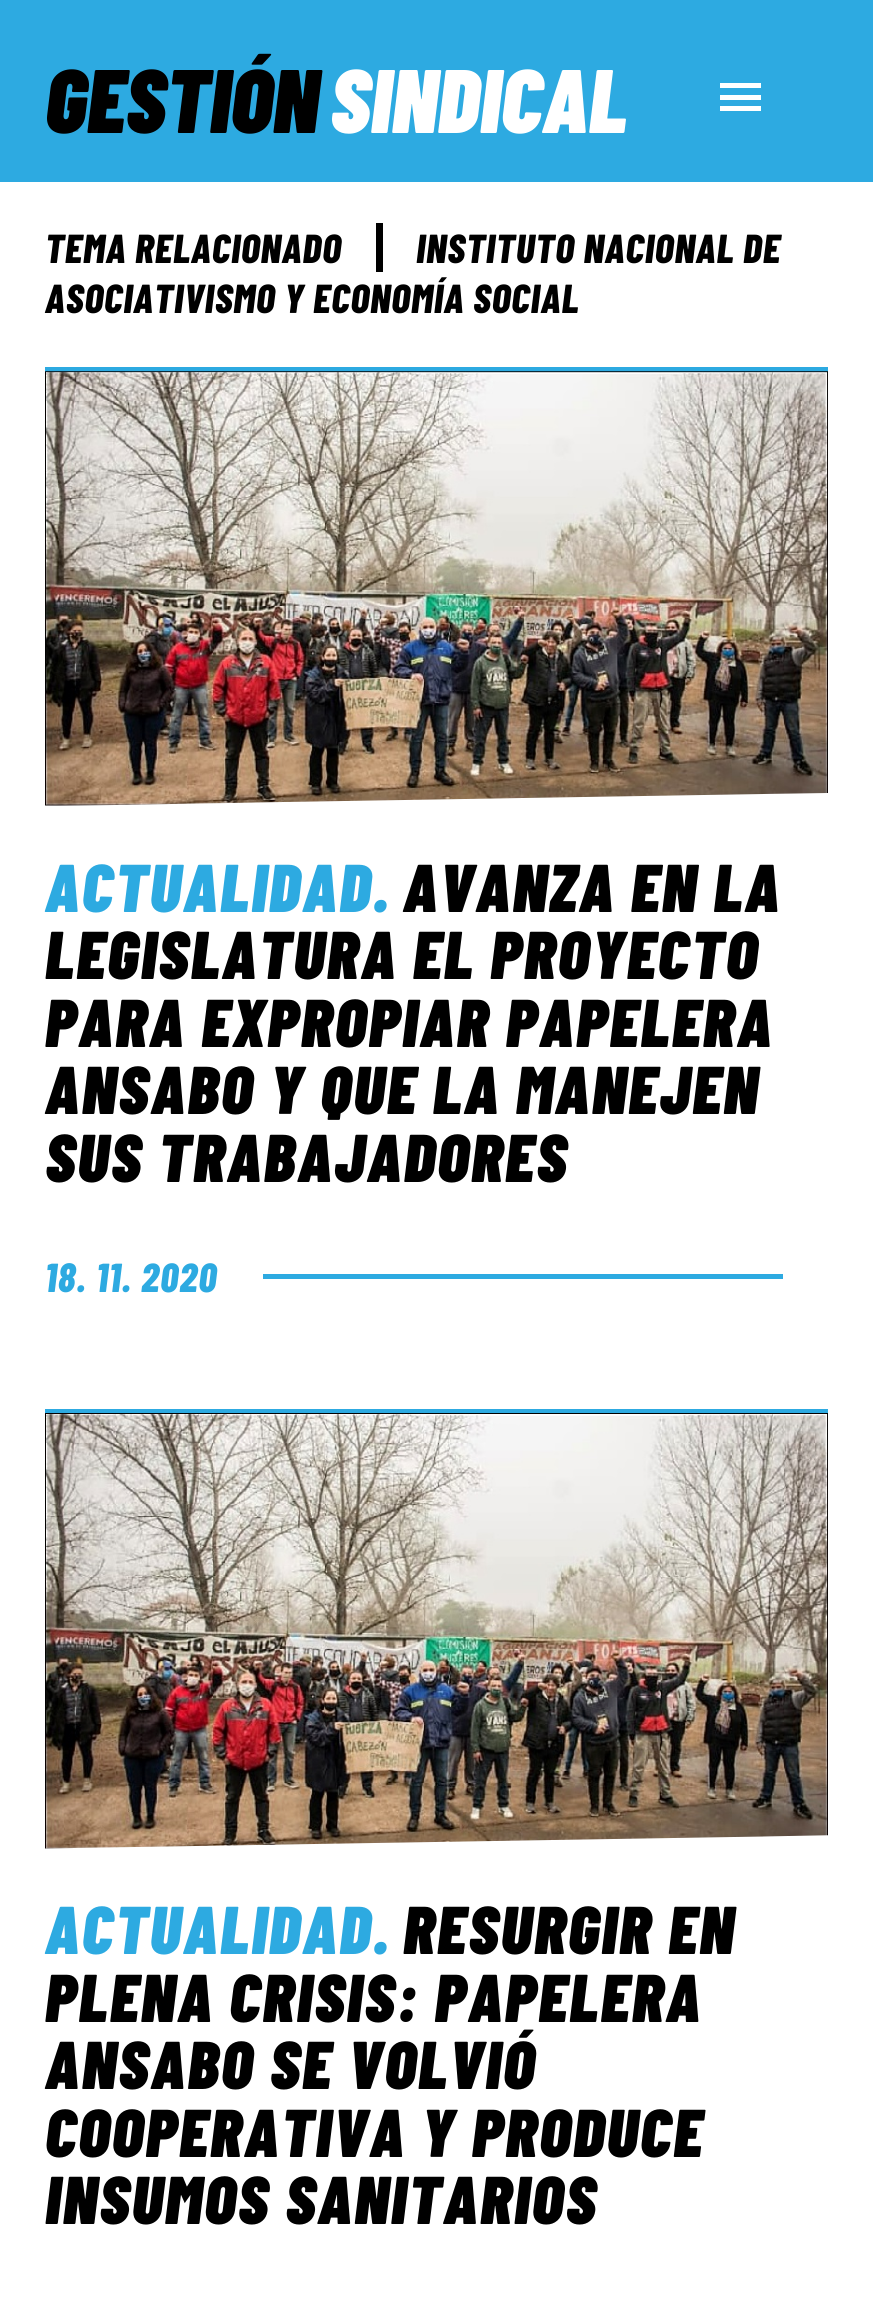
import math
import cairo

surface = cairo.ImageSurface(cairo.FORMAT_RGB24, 873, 2298)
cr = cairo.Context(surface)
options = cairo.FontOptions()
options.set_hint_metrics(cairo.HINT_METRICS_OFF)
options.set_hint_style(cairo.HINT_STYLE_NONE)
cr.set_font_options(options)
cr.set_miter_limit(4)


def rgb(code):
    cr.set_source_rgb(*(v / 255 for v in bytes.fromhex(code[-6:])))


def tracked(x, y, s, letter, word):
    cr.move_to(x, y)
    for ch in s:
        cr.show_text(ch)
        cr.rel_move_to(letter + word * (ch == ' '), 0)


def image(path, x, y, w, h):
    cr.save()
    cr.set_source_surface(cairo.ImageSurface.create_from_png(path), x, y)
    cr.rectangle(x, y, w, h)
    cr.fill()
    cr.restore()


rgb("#ffffff")
cr.paint()
for x, y, w, h, color in [
    (0, 0, 873, 182, "#2daae1"),
    (720, 95, 41, 5, "#ffffff"),
    (720, 83, 41, 5, "#ffffff"),
    (720, 106, 41, 5, "#ffffff"),
    (376, 223, 7, 49, "#000000"),
    (45, 367, 783, 5, "#2daae1"),
]:
    rgb(color)
    cr.rectangle(x, y, w, h)
    cr.fill()
image("img/1.png", 45, 371, 783, 435)
cr.rectangle(263, 1274, 520, 5)
cr.fill()
cr.rectangle(45, 1409, 783, 4)
cr.fill()
image("img/2.png", 45, 1413, 783, 436)
cr.select_font_face("Barlow Condensed Black", cairo.FONT_SLANT_ITALIC)
cr.set_font_size(90)
rgb("#000000")
cr.move_to(45, 133)
cr.show_text("GESTIÓN")
rgb("#ffffff")
cr.move_to(330, 133)
cr.show_text("SINDICAL")
cr.select_font_face("Barlow Condensed ExtraBold", cairo.FONT_SLANT_ITALIC)
cr.set_font_size(40.5)
rgb("#000000")
for x, y, s in [
    (45, 263, "TEMA RELACIONADO"),
    (416, 263, "INSTITUTO NACIONAL DE"),
    (45, 313, "ASOCIATIVISMO Y ECONOMÍA SOCIAL"),
]:
    tracked(x, y, s, 0.8, 0)
cr.select_font_face("Barlow Condensed Black", cairo.FONT_SLANT_ITALIC)
cr.set_font_size(67.5)
rgb("#2daae1")
tracked(45, 912, "ACTUALIDAD.", 2, 0)
rgb("#000000")
for x, y, s in [
    (403, 912, "AVANZA EN LA"),
    (45, 979, "LEGISLATURA EL PROYECTO"),
    (45, 1047, "PARA EXPROPIAR PAPELERA"),
    (45, 1114, "ANSABO Y QUE LA MANEJEN"),
    (45, 1182, "SUS TRABAJADORES"),
]:
    tracked(x, y, s, 2, 0)
cr.select_font_face("Barlow Condensed ExtraBold", cairo.FONT_SLANT_ITALIC)
cr.set_font_size(40.5)
rgb("#2daae1")
tracked(45, 1292, "18. 11. 2020", 1.25, 0)
cr.select_font_face("Barlow Condensed Black", cairo.FONT_SLANT_ITALIC)
cr.set_font_size(67.5)
tracked(45, 1954, "ACTUALIDAD.", 2, 0)
rgb("#000000")
for x, y, s in [
    (403, 1954, "RESURGIR EN"),
    (45, 2022, "PLENA CRISIS: PAPELERA"),
    (45, 2089, "ANSABO SE VOLVIÓ"),
    (45, 2157, "COOPERATIVA Y PRODUCE"),
    (45, 2224, "INSUMOS SANITARIOS"),
]:
    tracked(x, y, s, 2, 0)
surface.write_to_png("page.png")
